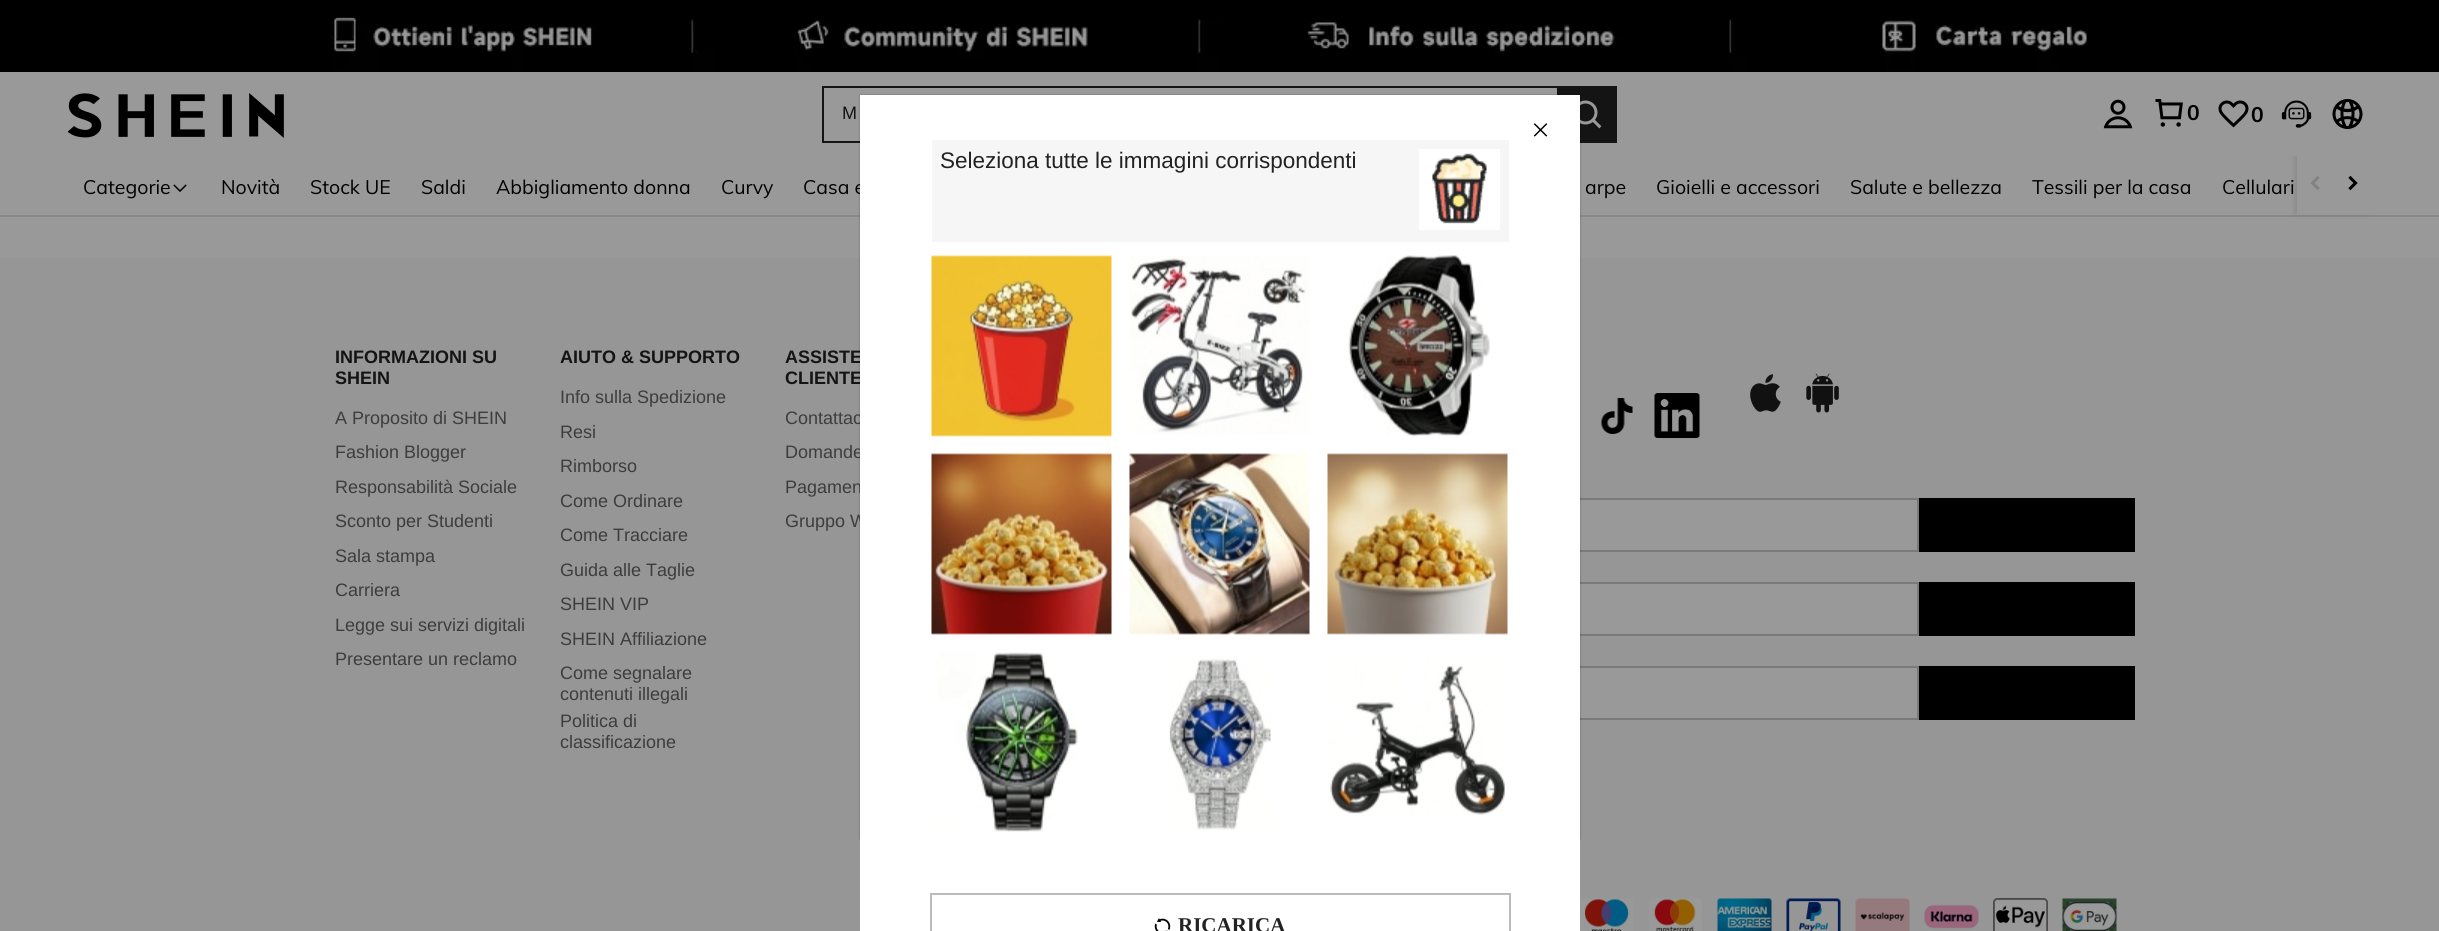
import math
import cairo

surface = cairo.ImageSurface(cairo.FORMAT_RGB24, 2439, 931)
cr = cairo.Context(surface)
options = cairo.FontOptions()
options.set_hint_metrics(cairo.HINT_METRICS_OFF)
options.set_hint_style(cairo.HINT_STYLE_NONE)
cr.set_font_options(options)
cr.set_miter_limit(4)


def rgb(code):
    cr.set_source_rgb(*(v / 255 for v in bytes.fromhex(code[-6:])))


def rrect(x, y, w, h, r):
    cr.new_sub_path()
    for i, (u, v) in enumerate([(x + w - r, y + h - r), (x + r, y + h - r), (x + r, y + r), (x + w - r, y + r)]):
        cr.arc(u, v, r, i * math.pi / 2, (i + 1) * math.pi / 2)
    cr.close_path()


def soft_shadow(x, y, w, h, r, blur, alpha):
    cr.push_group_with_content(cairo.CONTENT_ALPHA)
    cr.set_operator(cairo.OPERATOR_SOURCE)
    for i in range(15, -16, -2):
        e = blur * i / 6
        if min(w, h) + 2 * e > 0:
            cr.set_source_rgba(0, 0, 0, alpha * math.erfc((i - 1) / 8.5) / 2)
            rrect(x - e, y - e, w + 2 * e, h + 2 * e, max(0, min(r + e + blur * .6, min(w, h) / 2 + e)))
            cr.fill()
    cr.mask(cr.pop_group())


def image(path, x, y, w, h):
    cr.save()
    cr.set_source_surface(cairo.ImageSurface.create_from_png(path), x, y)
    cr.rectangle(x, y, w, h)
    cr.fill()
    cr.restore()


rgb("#999999")
cr.paint()
image("img/1.png", 0, 0, 2439, 72)
rgb("#898989")
cr.rectangle(0, 215, 2439, 2)
cr.fill()
rgb("#000000")
soft_shadow(2294, 156, 75, 59, 0, 2, 0.08)
rgb("#999999")
cr.rectangle(2294, 154, 75, 2)
cr.fill()
image("img/2.png", 68, 93, 216, 45)
for x, y, w, h, color in [
    (822, 86, 735, 2, "#141414"),
    (822, 141, 38, 2, "#141414"),
    (822, 86, 2, 57, "#141414"),
    (1557, 86, 60, 57, "#141414"),
]:
    rgb(color)
    cr.rectangle(x, y, w, h)
    cr.fill()
image("img/3.png", 1580, 100, 22, 29)
image("img/4.png", 2103, 99, 30, 30)
image("img/5.png", 2155, 99, 28, 28)
image("img/6.png", 2218, 100, 31, 28)
image("img/7.png", 2281, 100, 31, 28)
image("img/8.png", 2332, 99, 31, 30)
image("img/9.png", 173, 184, 14, 8)
rgb("#999999")
cr.rectangle(2297, 156, 74, 59)
cr.fill()
image("img/10.png", 2310, 176, 10, 14)
image("img/11.png", 2348, 175, 10, 16)
rgb("#969696")
cr.rectangle(0, 258, 2439, 673)
cr.fill()
image("img/12.png", 1601, 398, 32, 36)
image("img/13.png", 1654, 393, 46, 45)
image("img/14.png", 1750, 374, 31, 38)
image("img/15.png", 1806, 373, 33, 40)
rgb("#999999")
cr.rectangle(1580, 500, 337, 50)
cr.fill()
cr.rectangle(1236, 499, 682, 52)
rgb("#7a7a7a")
cr.stroke()
rgb("#000000")
cr.rectangle(1919, 498, 216, 54)
cr.fill()
rgb("#999999")
cr.rectangle(1580, 584, 337, 50)
cr.fill()
cr.rectangle(1356, 583, 562, 52)
rgb("#7a7a7a")
cr.stroke()
rgb("#000000")
cr.rectangle(1919, 582, 216, 54)
cr.fill()
rgb("#999999")
cr.rectangle(1580, 668, 337, 50)
cr.fill()
cr.rectangle(1356, 667, 562, 52)
rgb("#7a7a7a")
cr.stroke()
rgb("#000000")
cr.rectangle(1919, 666, 216, 54)
cr.fill()
image("img/16.png", 1580, 898, 53, 33)
image("img/17.png", 1649, 898, 53, 33)
image("img/18.png", 1717, 898, 55, 33)
image("img/19.png", 1786, 898, 55, 33)
image("img/20.png", 1855, 898, 55, 33)
image("img/21.png", 1924, 904, 55, 25)
image("img/22.png", 1993, 898, 55, 33)
image("img/23.png", 2062, 898, 55, 33)
rgb("#000000")
soft_shadow(860, 95, 720, 744, 0, 1, 0.3)
cr.select_font_face("Liberation Sans")
cr.set_font_size(18)
rgb("#141414")
cr.move_to(842, 119)
cr.show_text("M")
cr.select_font_face("Muli", cairo.FONT_SLANT_NORMAL, cairo.FONT_WEIGHT_BOLD)
cr.set_font_size(21)
rgb("#000000")
cr.move_to(2187, 120)
cr.show_text("0")
cr.move_to(2251, 122)
cr.show_text("0")
cr.select_font_face("Muli")
cr.set_font_size(19.5)
for x, y, s in [
    (83, 194, "Categorie"),
    (221, 194, "Novità"),
    (310, 194, "Stock UE"),
    (421, 194, "Saldi"),
    (496, 194, "Abbigliamento donna"),
    (721, 194, "Curvy"),
    (803, 194, "Casa e"),
    (1585, 194, "arpe"),
    (1656, 194, "Gioielli e accessori"),
    (1850, 194, "Salute e bellezza"),
    (2032, 194, "Tessili per la casa"),
    (2222, 194, "Cellulari"),
]:
    cr.move_to(x, y)
    cr.show_text(s)
cr.select_font_face("Liberation Sans", cairo.FONT_SLANT_NORMAL, cairo.FONT_WEIGHT_BOLD)
cr.set_font_size(18)
rgb("#141414")
cr.move_to(335, 363)
cr.show_text("INFORMAZIONI SU")
cr.move_to(335, 384)
cr.show_text("SHEIN")
cr.select_font_face("Liberation Sans")
rgb("#3d3d3d")
for x, y, s in [
    (335, 424, "A Proposito di SHEIN"),
    (335, 458, "Fashion Blogger"),
    (335, 493, "Responsabilità Sociale"),
    (335, 527, "Sconto per Studenti"),
    (335, 562, "Sala stampa"),
    (335, 596, "Carriera"),
    (335, 631, "Legge sui servizi digitali"),
    (335, 665, "Presentare un reclamo"),
]:
    cr.move_to(x, y)
    cr.show_text(s)
cr.select_font_face("Liberation Sans", cairo.FONT_SLANT_NORMAL, cairo.FONT_WEIGHT_BOLD)
rgb("#141414")
cr.move_to(560, 363)
cr.show_text("AIUTO & SUPPORTO")
cr.select_font_face("Liberation Sans")
rgb("#3d3d3d")
for x, y, s in [
    (560, 403, "Info sulla Spedizione"),
    (560, 438, "Resi"),
    (560, 472, "Rimborso"),
    (560, 507, "Come Ordinare"),
    (560, 541, "Come Tracciare"),
    (560, 576, "Guida alle Taglie"),
    (560, 610, "SHEIN VIP"),
    (560, 645, "SHEIN Affiliazione"),
    (560, 679, "Come segnalare"),
    (560, 700, "contenuti illegali"),
    (560, 727, "Politica di"),
    (560, 748, "classificazione"),
]:
    cr.move_to(x, y)
    cr.show_text(s)
cr.select_font_face("Liberation Sans", cairo.FONT_SLANT_NORMAL, cairo.FONT_WEIGHT_BOLD)
rgb("#141414")
cr.move_to(785, 363)
cr.show_text("ASSISTE")
cr.move_to(785, 384)
cr.show_text("CLIENTE")
cr.select_font_face("Liberation Sans")
rgb("#3d3d3d")
for x, y, s in [
    (785, 424, "Contattac"),
    (785, 458, "Domande"),
    (785, 493, "Pagamen"),
    (785, 527, "Gruppo W"),
]:
    cr.move_to(x, y)
    cr.show_text(s)
rgb("#ffffff")
cr.rectangle(860, 95, 720, 836)
cr.fill()
image("img/24.png", 1533, 123, 15, 14)
rgb("#f6f6f6")
cr.rectangle(932, 140, 577, 102)
cr.fill()
cr.set_font_size(22.5)
rgb("#222222")
cr.move_to(940, 168)
cr.show_text("Seleziona tutte le immagini corrispondenti")
rgb("#ffffff")
cr.rectangle(1419, 149, 81, 81)
cr.fill()
image("img/25.png", 1432, 153, 55, 71)
image("img/26.png", 931, 255, 181, 182)
image("img/27.png", 1130, 256, 179, 179)
image("img/28.png", 1348, 255, 142, 182)
image("img/29.png", 931, 453, 181, 182)
image("img/30.png", 1129, 453, 181, 182)
image("img/31.png", 1327, 453, 181, 182)
image("img/32.png", 937, 652, 141, 180)
image("img/33.png", 1169, 658, 102, 172)
image("img/34.png", 1330, 658, 175, 157)
cr.rectangle(931, 894, 579, 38)
rgb("#bbbbbb")
cr.stroke()
image("img/35.png", 1154, 918, 17, 13)
cr.select_font_face("Liberation Serif", cairo.FONT_SLANT_NORMAL, cairo.FONT_WEIGHT_BOLD)
cr.set_font_size(21)
rgb("#222222")
cr.move_to(1178, 932)
cr.show_text("RICARICA")
surface.write_to_png("page.png")
